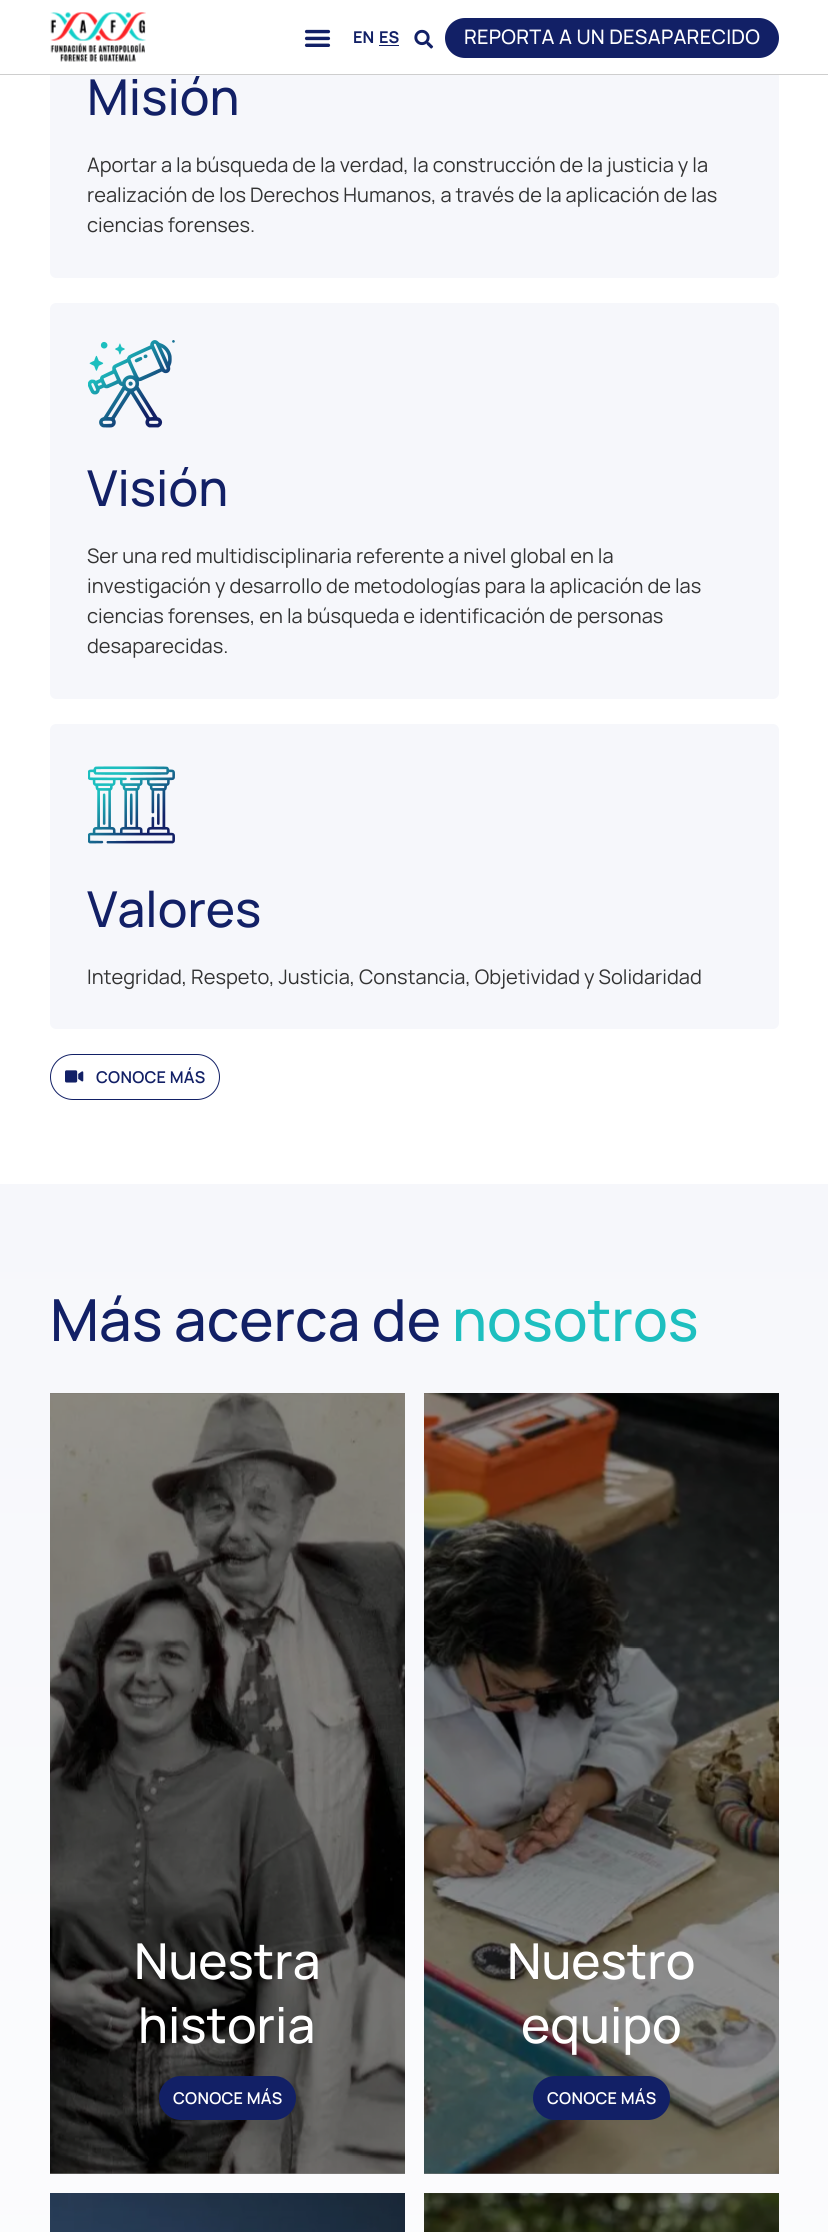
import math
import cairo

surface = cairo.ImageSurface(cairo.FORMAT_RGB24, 828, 2232)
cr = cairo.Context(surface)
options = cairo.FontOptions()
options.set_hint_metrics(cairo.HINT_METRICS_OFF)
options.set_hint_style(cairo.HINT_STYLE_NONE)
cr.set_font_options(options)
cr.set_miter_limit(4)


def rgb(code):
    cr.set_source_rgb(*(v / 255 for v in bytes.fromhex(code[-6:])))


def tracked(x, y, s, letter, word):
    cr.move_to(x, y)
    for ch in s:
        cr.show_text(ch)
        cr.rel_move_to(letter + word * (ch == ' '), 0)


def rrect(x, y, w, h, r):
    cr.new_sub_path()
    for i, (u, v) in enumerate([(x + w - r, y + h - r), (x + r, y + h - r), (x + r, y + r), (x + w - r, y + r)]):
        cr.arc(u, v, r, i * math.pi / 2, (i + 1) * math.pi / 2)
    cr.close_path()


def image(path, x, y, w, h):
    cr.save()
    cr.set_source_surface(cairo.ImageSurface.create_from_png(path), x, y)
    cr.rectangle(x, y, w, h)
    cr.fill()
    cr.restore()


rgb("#ffffff")
cr.paint()
rgb("#f6f7fb")
rrect(50, -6, 729, 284, 6)
cr.fill()
rgb("#ffffff")
cr.rectangle(50, 0, 729, 74)
cr.fill()
rgb("#cecece")
cr.rectangle(0, 74, 828, 1)
cr.fill()
image("img/1.png", 50, 12, 96, 50)
image("img/2.png", 304, 29, 27, 18)
rgb("#122066")
cr.rectangle(379, 45, 20, 1)
cr.fill()
image("img/3.png", 414, 29, 20, 20)
rrect(445, 18, 334, 40, 20)
cr.fill()
rgb("#f6f7fb")
rrect(50, 303, 729, 396, 6)
cr.fill()
image("img/4.png", 88, 340, 87, 88)
rrect(50, 724, 729, 305, 6)
cr.fill()
image("img/5.png", 88, 766, 87, 78)
rrect(50.5, 1054.5, 169, 45, 22.5)
rgb("#122066")
cr.set_line_width(1)
cr.stroke()
image("img/6.png", 65, 1070, 19, 13)
gradient = cairo.LinearGradient(414, 1184, 414, 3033)
gradient.add_color_stop_rgba(0, 0.965, 0.969, 0.984, 1)
gradient.add_color_stop_rgba(1, 1, 1, 1, 1)
cr.set_source(gradient)
cr.rectangle(0, 1184, 828, 1048)
cr.fill()
gradient = cairo.LinearGradient(414, 1184, 414, 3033)
gradient.add_color_stop_rgba(0, 0.541, 0.541, 0.553, 1)
gradient.add_color_stop_rgba(1, 0.561, 0.561, 0.561, 1)
cr.set_source(gradient)
cr.rectangle(424, 2173, 355, 1)
cr.fill()
cr.rectangle(50, 2173, 355, 1)
cr.fill()
image("img/7.png", 50, 1393, 355, 781)
rgb("#122066")
rrect(159, 2076, 137, 44, 22)
cr.fill()
image("img/8.png", 424, 1393, 355, 781)
rrect(533, 2076, 137, 44, 22)
cr.fill()
image("img/9.png", 50, 2193, 355, 39)
image("img/10.png", 424, 2193, 355, 39)
cr.select_font_face("Manrope", cairo.FONT_SLANT_NORMAL, cairo.FONT_WEIGHT_BOLD)
cr.set_font_size(16.25)
cr.move_to(353, 43)
cr.show_text("EN")
cr.move_to(379, 43)
cr.show_text("ES")
cr.select_font_face("Manrope Medium")
cr.set_font_size(20)
rgb("#ffffff")
tracked(464, 44, "REPORTA A UN DESAPARECIDO", 0.25, 0)
cr.set_font_size(49.5)
rgb("#122066")
cr.move_to(87, 115)
cr.show_text("Misión")
cr.select_font_face("Manrope")
cr.set_font_size(20)
rgb("#333333")
for x, y, s in [
    (87, 172, "Aportar a la búsqueda de la verdad, la construcción de la justicia y la"),
    (87, 202, "realización de los Derechos Humanos, a través de la aplicación de las"),
    (87, 232, "ciencias forenses."),
]:
    cr.move_to(x, y)
    cr.show_text(s)
cr.select_font_face("Manrope Medium")
cr.set_font_size(49.5)
rgb("#122066")
cr.move_to(87, 506)
cr.show_text("Visión")
cr.select_font_face("Manrope")
cr.set_font_size(20)
rgb("#333333")
for x, y, s in [
    (87, 563, "Ser una red multidisciplinaria referente a nivel global en la"),
    (87, 593, "investigación y desarrollo de metodologías para la aplicación de las"),
    (87, 623, "ciencias forenses, en la búsqueda e identificación de personas"),
    (87, 653, "desaparecidas."),
]:
    cr.move_to(x, y)
    cr.show_text(s)
cr.select_font_face("Manrope Medium")
cr.set_font_size(49.5)
rgb("#122066")
cr.move_to(87, 927)
cr.show_text("Valores")
cr.select_font_face("Manrope")
cr.set_font_size(20)
rgb("#333333")
cr.move_to(87, 984)
cr.show_text("Integridad, Respeto, Justicia, Constancia, Objetividad y Solidaridad")
cr.select_font_face("Manrope SemiBold")
cr.set_font_size(16.25)
rgb("#122066")
tracked(96, 1083, "CONOCE MÁS", 0.25, 0)
cr.select_font_face("Manrope Medium")
cr.set_font_size(58)
cr.move_to(50, 1341)
cr.show_text("Más acerca de")
rgb("#1dbfbf")
cr.move_to(452, 1341)
cr.show_text("nosotros")
cr.set_font_size(49.5)
rgb("#ffffff")
cr.move_to(134, 1979)
cr.show_text("Nuestra")
cr.move_to(138, 2043)
cr.show_text("historia")
cr.select_font_face("Manrope SemiBold")
cr.set_font_size(16.25)
tracked(173, 2104, "CONOCE MÁS", 0.25, 0)
cr.select_font_face("Manrope Medium")
cr.set_font_size(49.5)
cr.move_to(507, 1979)
cr.show_text("Nuestro")
cr.move_to(521, 2043)
cr.show_text("equipo")
cr.select_font_face("Manrope SemiBold")
cr.set_font_size(16.25)
tracked(547, 2104, "CONOCE MÁS", 0.25, 0)
surface.write_to_png("page.png")
